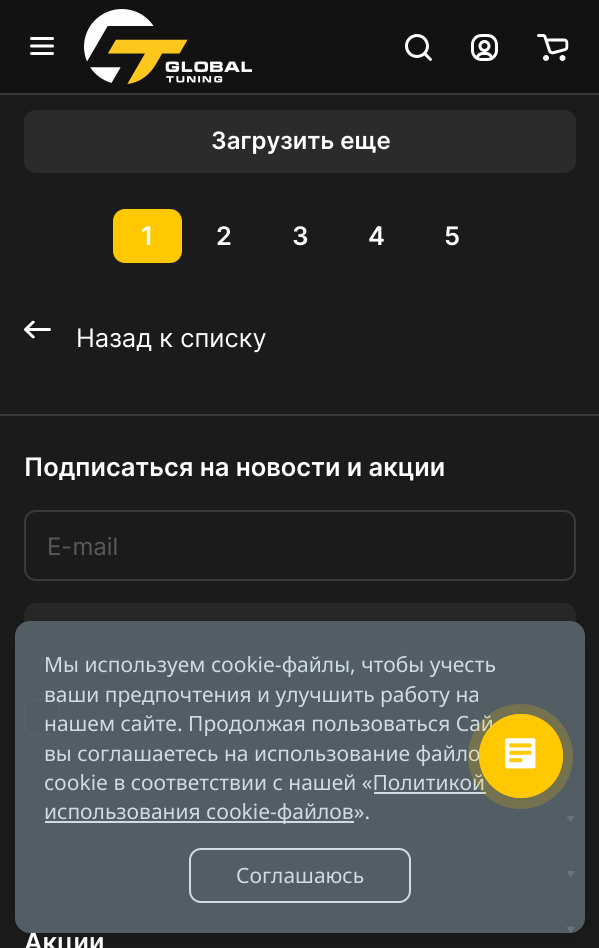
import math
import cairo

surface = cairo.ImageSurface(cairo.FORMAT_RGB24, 599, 948)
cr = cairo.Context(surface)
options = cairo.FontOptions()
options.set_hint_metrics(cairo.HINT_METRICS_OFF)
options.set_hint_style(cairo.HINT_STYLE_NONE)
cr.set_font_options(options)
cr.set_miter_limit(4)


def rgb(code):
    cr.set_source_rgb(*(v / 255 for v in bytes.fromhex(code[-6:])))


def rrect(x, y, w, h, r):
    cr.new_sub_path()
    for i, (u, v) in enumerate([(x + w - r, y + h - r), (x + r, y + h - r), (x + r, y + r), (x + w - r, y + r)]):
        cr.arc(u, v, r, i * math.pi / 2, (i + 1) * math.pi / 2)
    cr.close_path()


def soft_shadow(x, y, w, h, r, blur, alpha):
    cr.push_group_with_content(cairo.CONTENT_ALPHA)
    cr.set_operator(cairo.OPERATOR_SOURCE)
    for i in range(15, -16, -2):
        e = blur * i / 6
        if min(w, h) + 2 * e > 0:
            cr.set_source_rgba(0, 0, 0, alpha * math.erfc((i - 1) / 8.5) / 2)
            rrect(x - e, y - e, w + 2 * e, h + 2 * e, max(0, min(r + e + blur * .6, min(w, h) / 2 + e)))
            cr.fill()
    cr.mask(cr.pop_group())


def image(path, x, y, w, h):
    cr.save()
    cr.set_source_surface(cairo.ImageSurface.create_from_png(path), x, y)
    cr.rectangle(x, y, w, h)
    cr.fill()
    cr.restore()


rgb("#1b1b1b")
cr.paint()
rgb("#3a3a3a")
cr.rectangle(0, 93, 599, 2)
cr.fill()
rgb("#121212")
cr.rectangle(0, 0, 599, 93)
cr.fill()
image("img/1.png", 30, 37, 24, 18)
image("img/2.png", 84, 9, 168, 75)
image("img/3.png", 405, 34, 27, 27)
image("img/4.png", 471, 34, 27, 27)
image("img/5.png", 537, 34, 32, 27)
rgb("#2b2b2b")
rrect(24, 110, 552, 63, 12)
cr.fill()
rgb("#ffc800")
rrect(113, 209, 69, 54, 12)
cr.fill()
image("img/6.png", 24, 320, 27, 19)
rgb("#3a3a3a")
cr.rectangle(0, 414, 599, 2)
cr.fill()
rrect(25, 511, 550, 69, 11)
cr.stroke()
rgb("#282828")
rrect(25, 604, 550, 69, 11)
cr.fill_preserve()
cr.stroke()
rgb("#121212")
rrect(25, 700, 34, 34, 5)
cr.fill_preserve()
rgb("#3a3a3a")
cr.stroke()
image("img/7.png", 567, 815, 8, 7)
image("img/8.png", 567, 871, 8, 6)
image("img/9.png", 567, 926, 8, 7)
cr.save()
cr.set_fill_rule(cairo.FILL_RULE_EVEN_ODD)
cr.new_path()
cr.move_to(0, 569)
cr.line_to(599, 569)
cr.line_to(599, 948)
cr.line_to(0, 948)
cr.close_path()
cr.move_to(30, 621)
cr.line_to(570, 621)
cr.curve_to(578.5, 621, 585, 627.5, 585, 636)
cr.line_to(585, 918)
cr.curve_to(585, 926.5, 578.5, 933, 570, 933)
cr.line_to(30, 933)
cr.curve_to(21.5, 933, 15, 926.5, 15, 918)
cr.line_to(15, 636)
cr.curve_to(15, 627.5, 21.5, 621, 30, 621)
cr.close_path()
cr.clip()
rgb("#000000")
soft_shadow(15, 627, 570, 312, 15, 19, 0.15)
cr.restore()
cr.select_font_face("Inter SemiBold")
cr.set_font_size(24)
rgb("#ffffff")
cr.move_to(211, 149)
cr.show_text("Загрузить еще")
cr.set_font_size(25.5)
for x, y, s in [
    (141, 245, "1"),
    (216, 245, "2"),
    (292, 245, "3"),
    (368, 245, "4"),
    (444, 245, "5"),
]:
    cr.move_to(x, y)
    cr.show_text(s)
cr.select_font_face("Inter")
cr.move_to(76, 347)
cr.show_text("Назад к списку")
cr.select_font_face("Inter SemiBold")
cr.move_to(24, 476)
cr.show_text("Подписаться на новости и акции")
cr.select_font_face("Inter")
cr.set_font_size(24)
rgb("#595959")
cr.move_to(47, 555)
cr.show_text("E-mail")
cr.select_font_face("Inter SemiBold")
cr.set_font_size(25.5)
rgb("#ffffff")
cr.move_to(24, 951)
cr.show_text("Акции")
cr.set_source_rgba(0.349, 0.392, 0.424, 0.9)
rrect(15, 621, 570, 312, 15)
cr.fill()
cr.select_font_face("Noto Sans")
cr.set_font_size(21)
rgb("#cfdce4")
for x, y, s in [
    (44, 672, "Мы используем cookie-файлы, чтобы учесть"),
    (44, 702, "ваши предпочтения и улучшить работу на"),
    (44, 731, "нашем сайте. Продолжая пользоваться Сай"),
    (44, 761, "вы соглашаетесь на использование файло"),
    (44, 790, "cookie в соответствии с нашей «Политикой"),
]:
    cr.move_to(x, y)
    cr.show_text(s)
cr.rectangle(374, 792, 112, 2)
cr.fill()
cr.rectangle(45, 821, 309, 2)
cr.fill()
cr.move_to(44, 819)
cr.show_text("использования cookie-файлов».")
rrect(190, 849, 220, 53, 11)
cr.stroke()
cr.move_to(236, 883)
cr.show_text("Соглашаюсь")
cr.set_source_rgba(1, 0.784, 0, 0.2)
cr.new_path()
cr.arc(520.5, 756.5, 52.5, 0, 2 * math.pi)
cr.fill()
cr.arc(521, 756, 41.5, 0, 2 * math.pi)
rgb("#ffc800")
cr.set_line_width(1)
cr.stroke()
cr.arc(521, 756, 42, 0, 2 * math.pi)
cr.fill()
image("img/10.png", 505, 738, 31, 31)
surface.write_to_png("page.png")
